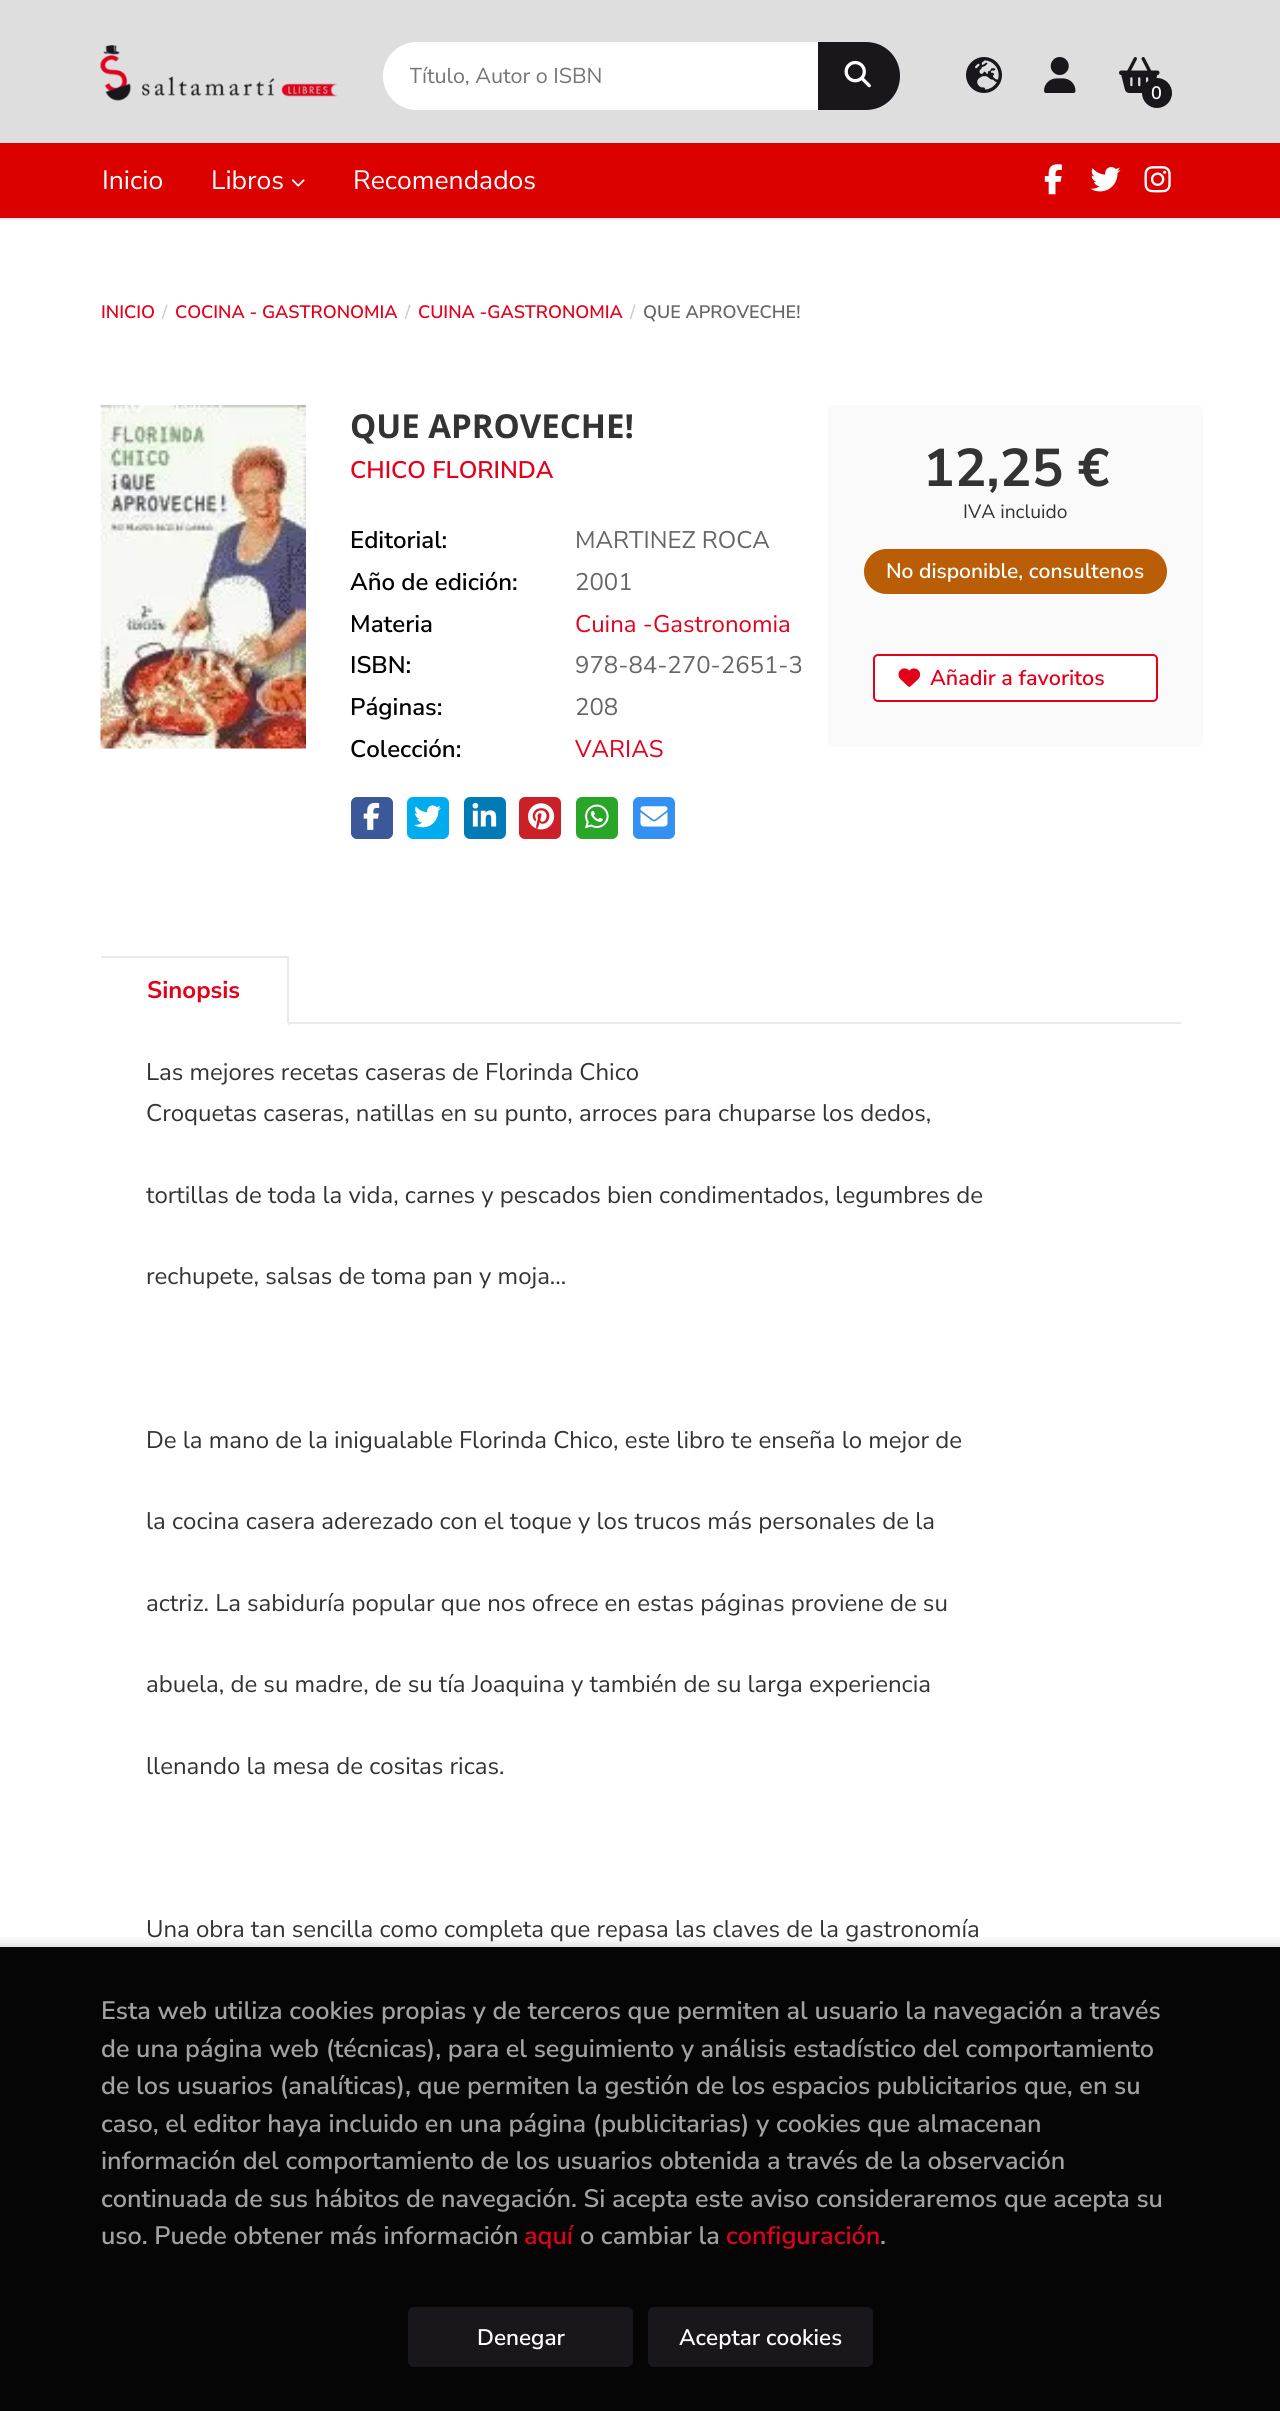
import math
import cairo

surface = cairo.ImageSurface(cairo.FORMAT_RGB24, 1280, 2411)
cr = cairo.Context(surface)
options = cairo.FontOptions()
options.set_hint_metrics(cairo.HINT_METRICS_OFF)
options.set_hint_style(cairo.HINT_STYLE_NONE)
cr.set_font_options(options)
cr.set_miter_limit(4)


def rgb(code):
    cr.set_source_rgb(*(v / 255 for v in bytes.fromhex(code[-6:])))


def rrect(x, y, w, h, r):
    cr.new_sub_path()
    for i, (u, v) in enumerate([(x + w - r, y + h - r), (x + r, y + h - r), (x + r, y + r), (x + w - r, y + r)]):
        cr.arc(u, v, r, i * math.pi / 2, (i + 1) * math.pi / 2)
    cr.close_path()


def soft_shadow(x, y, w, h, r, blur, alpha):
    cr.push_group_with_content(cairo.CONTENT_ALPHA)
    cr.set_operator(cairo.OPERATOR_SOURCE)
    for i in range(15, -16, -2):
        e = blur * i / 6
        if min(w, h) + 2 * e > 0:
            cr.set_source_rgba(0, 0, 0, alpha * math.erfc((i - 1) / 8.5) / 2)
            rrect(x - e, y - e, w + 2 * e, h + 2 * e, max(0, min(r + e + blur * .6, min(w, h) / 2 + e)))
            cr.fill()
    cr.mask(cr.pop_group())


def image(path, x, y, w, h):
    cr.save()
    cr.set_source_surface(cairo.ImageSurface.create_from_png(path), x, y)
    cr.rectangle(x, y, w, h)
    cr.fill()
    cr.restore()


rgb("#ffffff")
cr.paint()
rgb("#050505")
cr.rectangle(0, 1947, 1280, 464)
cr.fill()
rgb("#dedede")
cr.rectangle(0, 0, 1280, 143)
cr.fill()
image("img/1.png", 100, 45, 238, 56)
rgb("#ffffff")
cr.new_path()
cr.move_to(417, 42)
cr.line_to(818, 42)
cr.line_to(818, 110)
cr.line_to(417, 110)
cr.curve_to(398, 110, 383, 95, 383, 76)
cr.curve_to(383, 57, 398, 42, 417, 42)
cr.close_path()
cr.fill()
rgb("#19171c")
cr.new_path()
cr.move_to(818, 42)
cr.line_to(866, 42)
cr.curve_to(885, 42, 900, 57, 900, 76)
cr.curve_to(900, 95, 885, 110, 866, 110)
cr.line_to(818, 110)
cr.close_path()
cr.fill()
image("img/2.png", 844, 60, 27, 28)
image("img/3.png", 966, 57, 36, 36)
image("img/4.png", 1044, 57, 32, 36)
image("img/5.png", 1119, 57, 41, 36)
cr.arc(1157, 93, 15, 0, 2 * math.pi)
cr.fill()
rgb("#db0100")
cr.rectangle(0, 143, 1280, 75)
cr.fill()
rgb("#eeeeee")
cr.rectangle(0, 218, 1280, 2)
cr.fill()
image("img/6.png", 291, 179, 14, 8)
image("img/7.png", 1044, 164, 18, 31)
image("img/8.png", 1090, 167, 31, 25)
image("img/9.png", 1144, 166, 27, 27)
image("img/10.png", 100, 405, 206, 344)
rgb("#3b5998")
rrect(351, 797, 42, 42, 6)
cr.fill()
image("img/11.png", 363, 802, 17, 28)
rgb("#00aced")
rrect(407, 797, 42, 42, 6)
cr.fill()
image("img/12.png", 414, 805, 27, 23)
rgb("#007bb6")
rrect(464, 797, 42, 42, 6)
cr.fill()
image("img/13.png", 472, 802, 25, 25)
rgb("#cb2027")
rrect(519, 797, 42, 42, 6)
cr.fill()
image("img/14.png", 528, 803, 27, 27)
rgb("#29a628")
rrect(576, 797, 42, 42, 6)
cr.fill()
image("img/15.png", 585, 804, 24, 25)
rgb("#3490f3")
rrect(633, 797, 42, 42, 6)
cr.fill()
image("img/16.png", 640, 806, 28, 21)
rgb("#fafafa")
rrect(828, 405, 375, 342, 6)
cr.fill()
rgb("#b95e06")
rrect(864, 549, 303, 45, 22.5)
cr.fill()
rgb("#ffffff")
rrect(874, 655, 283, 46, 4)
cr.fill_preserve()
rgb("#e3001b")
cr.stroke()
image("img/17.png", 898, 668, 23, 19)
for x, y, w, h, color in [
    (289, 1022, 892, 2, "#eaeaea"),
    (101, 956, 187, 2, "#eaeaea"),
    (287, 956, 2, 69, "#eaeaea"),
    (287, 1023, 1, 2, "#fdfdfd"),
]:
    rgb(color)
    cr.rectangle(x, y, w, h)
    cr.fill()
cr.save()
cr.rectangle(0, 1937, 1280, 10)
cr.clip()
rgb("#000000")
soft_shadow(-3, 1944, 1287, 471, 0, 6, 0.15)
cr.restore()
rgb("#19171c")
rrect(408, 2307, 225, 60, 6)
cr.fill()
rrect(648, 2307, 225, 60, 6)
cr.fill()
cr.save()
cr.rectangle(410, 60, 408, 30)
cr.clip()
cr.select_font_face("Nunito Sans")
cr.set_font_size(21.5)
rgb("#757575")
cr.move_to(409, 83)
cr.show_text("Título, Autor o ISBN")
cr.restore()
cr.select_font_face("Nunito Sans SemiBold")
cr.set_font_size(18)
rgb("#ffffff")
cr.move_to(1151, 99)
cr.show_text("0")
cr.select_font_face("Nunito Sans")
cr.set_font_size(26.5)
for x, y, s in [
    (102, 189, "Inicio"),
    (211, 189, "Libros"),
    (353, 189, "Recomendados"),
]:
    cr.move_to(x, y)
    cr.show_text(s)
cr.select_font_face("Nunito Sans SemiBold")
cr.set_font_size(18)
rgb("#e3001b")
cr.move_to(101, 318)
cr.show_text("INICIO")
rgb("#cccccc")
cr.move_to(162, 318)
cr.show_text("/")
rgb("#e3001b")
cr.move_to(175, 318)
cr.show_text("COCINA - GASTRONOMIA")
rgb("#cccccc")
cr.move_to(405, 318)
cr.show_text("/")
rgb("#e3001b")
cr.move_to(418, 318)
cr.show_text("CUINA -GASTRONOMIA")
rgb("#cccccc")
cr.move_to(630, 318)
cr.show_text("/")
rgb("#666666")
cr.move_to(643, 318)
cr.show_text("QUE APROVECHE!")
cr.select_font_face("Open Sans", cairo.FONT_SLANT_NORMAL, cairo.FONT_WEIGHT_BOLD)
cr.set_font_size(33)
rgb("#333333")
cr.move_to(350, 438)
cr.show_text("QUE APROVECHE!")
cr.select_font_face("Nunito Sans SemiBold")
cr.set_font_size(24)
rgb("#e3001b")
cr.move_to(350, 478)
cr.show_text("CHICO FLORINDA")
rgb("#000000")
cr.move_to(350, 548)
cr.show_text("Editorial:")
cr.select_font_face("Nunito Sans")
rgb("#666666")
cr.move_to(575, 548)
cr.show_text("MARTINEZ ROCA")
cr.select_font_face("Nunito Sans SemiBold")
rgb("#000000")
cr.move_to(350, 590)
cr.show_text("Año de edición:")
cr.select_font_face("Nunito Sans")
rgb("#666666")
cr.move_to(575, 590)
cr.show_text("2001")
cr.select_font_face("Nunito Sans SemiBold")
rgb("#000000")
cr.move_to(350, 632)
cr.show_text("Materia")
cr.select_font_face("Nunito Sans")
rgb("#e3001b")
cr.move_to(575, 632)
cr.show_text("Cuina -Gastronomia")
cr.select_font_face("Nunito Sans SemiBold")
rgb("#000000")
cr.move_to(350, 673)
cr.show_text("ISBN:")
cr.select_font_face("Nunito Sans")
rgb("#666666")
cr.move_to(575, 673)
cr.show_text("978-84-270-2651-3")
cr.select_font_face("Nunito Sans SemiBold")
rgb("#000000")
cr.move_to(350, 715)
cr.show_text("Páginas:")
cr.select_font_face("Nunito Sans")
rgb("#666666")
cr.move_to(575, 715)
cr.show_text("208")
cr.select_font_face("Nunito Sans SemiBold")
rgb("#000000")
cr.move_to(350, 757)
cr.show_text("Colección:")
cr.select_font_face("Nunito Sans")
rgb("#e3001b")
cr.move_to(575, 757)
cr.show_text("VARIAS")
cr.select_font_face("Nunito Sans", cairo.FONT_SLANT_NORMAL, cairo.FONT_WEIGHT_BOLD)
cr.set_font_size(53)
rgb("#333333")
cr.move_to(923, 486)
cr.show_text("12,25 €")
cr.select_font_face("Nunito Sans")
cr.set_font_size(19.25)
cr.move_to(963, 518)
cr.show_text("IVA incluido")
cr.select_font_face("Nunito Sans SemiBold")
cr.set_font_size(21)
rgb("#ffffff")
cr.move_to(886, 578)
cr.show_text("No disponible, consultenos")
cr.set_font_size(21.5)
rgb("#e3001b")
cr.move_to(930, 685)
cr.show_text("Añadir a favoritos")
cr.select_font_face("Nunito Sans", cairo.FONT_SLANT_NORMAL, cairo.FONT_WEIGHT_BOLD)
cr.set_font_size(24)
cr.move_to(147, 998)
cr.show_text("Sinopsis")
cr.select_font_face("Nunito Sans")
rgb("#333333")
for x, y, s in [
    (146, 1080, "Las mejores recetas caseras de Florinda Chico"),
    (146, 1121, "Croquetas caseras, natillas en su punto, arroces para chuparse los dedos,"),
    (146, 1203, "tortillas de toda la vida, carnes y pescados bien condimentados, legumbres de"),
    (146, 1284, "rechupete, salsas de toma pan y moja..."),
    (146, 1448, "De la mano de la inigualable Florinda Chico, este libro te enseña lo mejor de"),
    (146, 1529, "la cocina casera aderezado con el toque y los trucos más personales de la"),
    (146, 1611, "actriz. La sabiduría popular que nos ofrece en estas páginas proviene de su"),
    (146, 1692, "abuela, de su madre, de su tía Joaquina y también de su larga experiencia"),
    (146, 1774, "llenando la mesa de cositas ricas."),
    (146, 1937, "Una obra tan sencilla como completa que repasa las claves de la gastronomía"),
]:
    cr.move_to(x, y)
    cr.show_text(s)
cr.select_font_face("Nunito Sans SemiBold")
cr.set_font_size(25.2)
rgb("#a2a2a2")
for x, y, s in [
    (101, 2019, "Esta web utiliza cookies propias y de terceros que permiten al usuario la navegación a través"),
    (101, 2057, "de una página web (técnicas), para el seguimiento y análisis estadístico del comportamiento"),
    (101, 2094, "de los usuarios (analíticas), que permiten la gestión de los espacios publicitarios que, en su"),
    (101, 2132, "caso, el editor haya incluido en una página (publicitarias) y cookies que almacenan"),
    (101, 2169, "información del comportamiento de los usuarios obtenida a través de la observación"),
    (101, 2207, "continuada de sus hábitos de navegación. Si acepta este aviso consideraremos que acepta su"),
    (101, 2244, "uso. Puede obtener más información"),
]:
    cr.move_to(x, y)
    cr.show_text(s)
rgb("#e3001b")
cr.move_to(524, 2244)
cr.show_text("aquí")
rgb("#a2a2a2")
cr.move_to(580, 2244)
cr.show_text("o cambiar la")
rgb("#e3001b")
cr.move_to(726, 2244)
cr.show_text("configuración")
rgb("#a2a2a2")
cr.move_to(880, 2244)
cr.show_text(".")
cr.set_font_size(22.5)
rgb("#ffffff")
cr.move_to(477, 2345)
cr.show_text("Denegar")
cr.move_to(679, 2345)
cr.show_text("Aceptar cookies")
surface.write_to_png("page.png")
